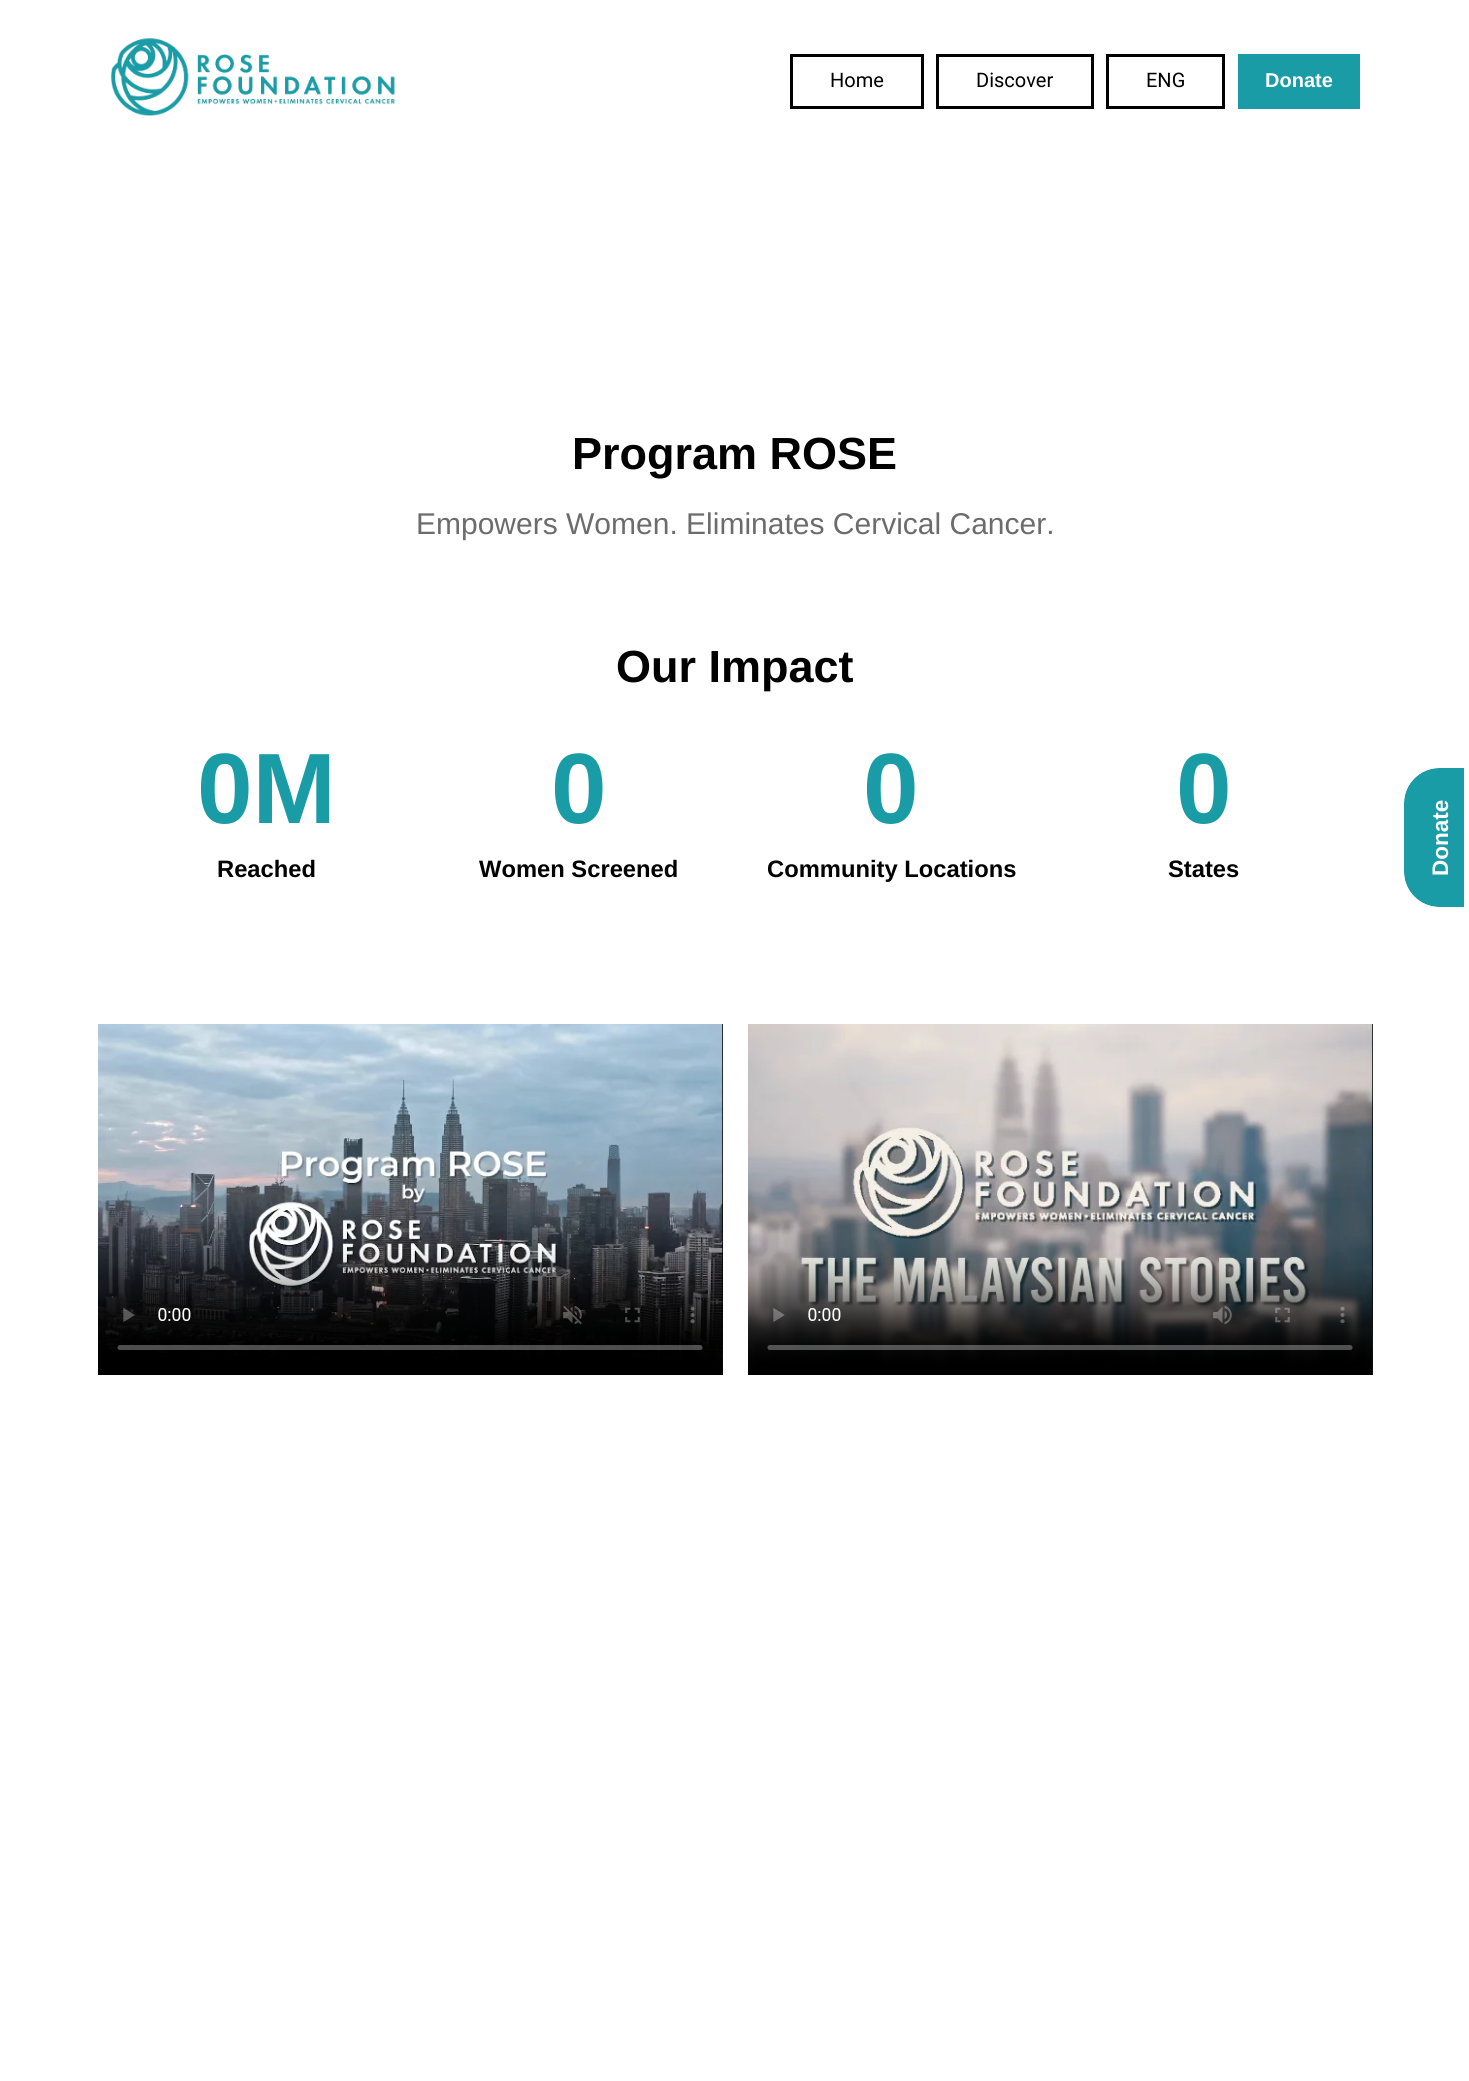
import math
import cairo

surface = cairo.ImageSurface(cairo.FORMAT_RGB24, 1469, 2081)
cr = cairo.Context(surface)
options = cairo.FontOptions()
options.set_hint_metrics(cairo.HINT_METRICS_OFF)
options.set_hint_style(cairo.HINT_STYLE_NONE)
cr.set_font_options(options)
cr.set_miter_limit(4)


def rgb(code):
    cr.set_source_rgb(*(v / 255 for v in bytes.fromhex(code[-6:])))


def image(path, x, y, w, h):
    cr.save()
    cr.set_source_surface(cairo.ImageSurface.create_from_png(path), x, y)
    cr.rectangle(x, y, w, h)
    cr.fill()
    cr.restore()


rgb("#ffffff")
cr.paint()
image("img/1.png", 110, 38, 285, 78)
cr.rectangle(791.5, 55.5, 131, 52)
rgb("#000000")
cr.set_line_width(3)
cr.stroke()
cr.rectangle(937.5, 55.5, 155, 52)
cr.stroke()
cr.rectangle(1107.5, 55.5, 116, 52)
cr.stroke()
rgb("#1a9ca6")
cr.rectangle(1238, 54, 122, 55)
cr.fill()
rgb("#000000")
cr.rectangle(722, 1024, 1, 351)
cr.fill()
image("img/2.png", 98, 1024, 625, 351)
cr.rectangle(1372, 1024, 1, 351)
cr.fill()
image("img/3.png", 748, 1024, 625, 351)
rgb("#1a9ca6")
cr.new_path()
cr.move_to(1404, 872)
cr.line_to(1404, 803)
cr.curve_to(1404, 784, 1420, 768, 1439, 768)
cr.line_to(1464, 768)
cr.line_to(1464, 907)
cr.line_to(1439, 907)
cr.curve_to(1420, 907, 1404, 891, 1404, 872)
cr.close_path()
cr.fill()
rgb("#ffffff")
cr.set_fill_rule(cairo.FILL_RULE_EVEN_ODD)
cr.new_path()
cr.move_to(1401, 872)
cr.line_to(1401, 803)
cr.curve_to(1401, 782, 1418, 766, 1439, 766)
cr.line_to(1464, 766)
cr.line_to(1464, 909)
cr.line_to(1439, 909)
cr.curve_to(1418, 909, 1401, 893, 1401, 872)
cr.close_path()
cr.move_to(1404, 872)
cr.line_to(1404, 803)
cr.curve_to(1404, 784, 1420, 768, 1439, 768)
cr.line_to(1464, 768)
cr.line_to(1464, 907)
cr.line_to(1439, 907)
cr.curve_to(1420, 907, 1404, 891, 1404, 872)
cr.close_path()
cr.fill()
cr.select_font_face("Roboto")
cr.set_font_size(20)
rgb("#000000")
for x, y, s in [
    (830, 87, "Home"),
    (976, 87, "Discover"),
    (1146, 87, "ENG"),
]:
    cr.move_to(x, y)
    cr.show_text(s)
cr.select_font_face("Liberation Sans", cairo.FONT_SLANT_NORMAL, cairo.FONT_WEIGHT_BOLD)
rgb("#ffffff")
cr.move_to(1265, 87)
cr.show_text("Donate")
cr.set_font_size(45)
rgb("#000000")
cr.move_to(572, 469)
cr.show_text("Program ROSE")
cr.select_font_face("Liberation Sans")
cr.set_font_size(30)
rgb("#6c6c6c")
cr.move_to(416, 534)
cr.show_text("Empowers Women. Eliminates Cervical Cancer.")
cr.select_font_face("Liberation Sans", cairo.FONT_SLANT_NORMAL, cairo.FONT_WEIGHT_BOLD)
cr.set_font_size(45)
rgb("#000000")
cr.move_to(616, 682)
cr.show_text("Our Impact")
cr.set_font_size(100)
rgb("#1a9ca6")
cr.move_to(197, 823)
cr.show_text("0M")
cr.set_font_size(23.75)
rgb("#000000")
cr.move_to(217, 877)
cr.show_text("Reached")
cr.set_font_size(100)
rgb("#1a9ca6")
cr.move_to(551, 823)
cr.show_text("0")
cr.set_font_size(23.75)
rgb("#000000")
cr.move_to(479, 877)
cr.show_text("Women Screened")
cr.set_font_size(100)
rgb("#1a9ca6")
cr.move_to(863, 823)
cr.show_text("0")
cr.set_font_size(23.75)
rgb("#000000")
cr.move_to(767, 877)
cr.show_text("Community Locations")
cr.set_font_size(100)
rgb("#1a9ca6")
cr.move_to(1176, 823)
cr.show_text("0")
cr.set_font_size(23.75)
rgb("#000000")
cr.move_to(1168, 877)
cr.show_text("States")
cr.set_font_size(22.5)
rgb("#ffffff")
cr.save()
cr.translate(1448, 876)
cr.rotate(-90 * math.pi / 180)
cr.move_to(0, 0)
cr.show_text("Donate")
cr.restore()
surface.write_to_png("page.png")
